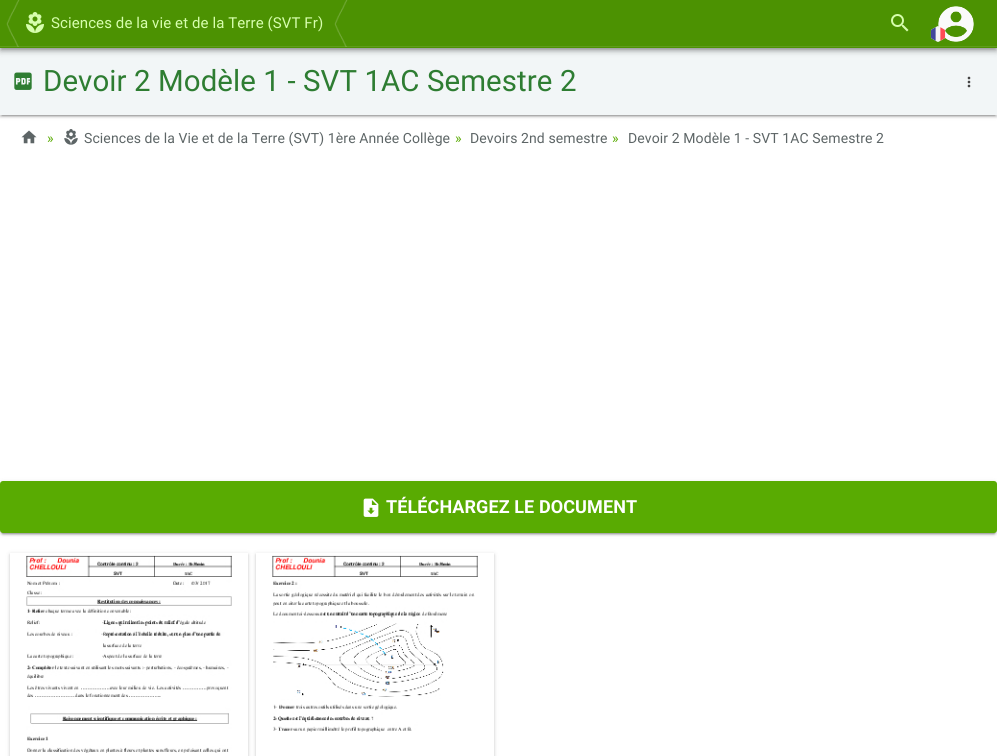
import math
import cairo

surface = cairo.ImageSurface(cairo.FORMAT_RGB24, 997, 756)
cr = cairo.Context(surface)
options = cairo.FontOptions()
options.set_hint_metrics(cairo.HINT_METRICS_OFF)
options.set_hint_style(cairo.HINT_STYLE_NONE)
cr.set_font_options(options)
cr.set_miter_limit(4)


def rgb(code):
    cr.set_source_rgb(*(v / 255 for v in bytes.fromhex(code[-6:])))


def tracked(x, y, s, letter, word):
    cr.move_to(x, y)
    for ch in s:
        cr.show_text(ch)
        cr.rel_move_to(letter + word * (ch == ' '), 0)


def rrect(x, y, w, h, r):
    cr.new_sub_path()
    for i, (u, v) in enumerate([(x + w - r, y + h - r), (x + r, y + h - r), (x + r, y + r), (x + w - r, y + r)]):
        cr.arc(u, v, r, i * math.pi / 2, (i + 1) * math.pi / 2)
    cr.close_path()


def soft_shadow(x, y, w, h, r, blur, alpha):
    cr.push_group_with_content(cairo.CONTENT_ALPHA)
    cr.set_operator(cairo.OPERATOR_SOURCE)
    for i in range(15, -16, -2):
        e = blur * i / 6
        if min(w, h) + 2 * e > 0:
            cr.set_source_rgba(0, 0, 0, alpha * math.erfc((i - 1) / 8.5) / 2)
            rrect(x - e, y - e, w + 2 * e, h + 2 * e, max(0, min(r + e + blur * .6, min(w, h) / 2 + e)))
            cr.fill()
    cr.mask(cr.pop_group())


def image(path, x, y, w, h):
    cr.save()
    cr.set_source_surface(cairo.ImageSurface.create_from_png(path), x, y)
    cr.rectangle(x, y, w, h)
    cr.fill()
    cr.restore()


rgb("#ffffff")
cr.paint()
rgb("#000000")
soft_shadow(2, 53, 993, 63, 0, 0.5, 0.2)
soft_shadow(0, 49, 997, 67, 0, 2.5, 0.12)
soft_shadow(0, 50, 997, 67, 0, 1, 0.14)
rgb("#f2f6f7")
cr.rectangle(0, 48, 997, 67)
cr.fill()
rgb("#000000")
soft_shadow(1, 3, 995, 46, 0, 2, 0.3)
soft_shadow(0, 1, 997, 48, 0, 5, 0.12)
soft_shadow(0, 4, 997, 48, 0, 2.5, 0.14)
rgb("#4c9202")
cr.rectangle(0, 0, 997, 48)
cr.fill()
rgb("#5e9d1b")
cr.rectangle(0, 46, 997, 1)
cr.fill()
image("img/1.png", 6, 0, 14, 47)
image("img/2.png", 26, 12, 18, 21)
image("img/1.png", 334, 0, 14, 47)
image("img/3.png", 891, 14, 18, 18)
image("img/4.png", 938, 6, 36, 36)
image("img/5.png", 930, 26, 16, 16)
image("img/6.png", 14, 72, 18, 18)
image("img/7.png", 967, 76, 4, 12)
image("img/8.png", 21, 130, 16, 14)
image("img/9.png", 64, 129, 14, 16)
rgb("#000000")
soft_shadow(2, 486, 993, 48, 1, 0.5, 0.2)
soft_shadow(0, 482, 997, 52, 3, 2.5, 0.12)
soft_shadow(0, 483, 997, 52, 3, 1, 0.14)
rgb("#59ab02")
rrect(0, 481, 997, 52, 3)
cr.fill()
image("img/10.png", 363, 498, 16, 19)
cr.save()
cr.set_fill_rule(cairo.FILL_RULE_EVEN_ODD)
cr.new_path()
cr.move_to(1, 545)
cr.line_to(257, 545)
cr.line_to(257, 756)
cr.line_to(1, 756)
cr.close_path()
cr.move_to(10, 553)
cr.line_to(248, 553)
cr.line_to(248, 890)
cr.line_to(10, 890)
cr.close_path()
cr.clip()
rgb("#000000")
soft_shadow(10, 554, 238, 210, 0, 2.5, 0.12)
cr.restore()
cr.save()
cr.set_fill_rule(cairo.FILL_RULE_EVEN_ODD)
cr.new_path()
cr.move_to(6, 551)
cr.line_to(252, 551)
cr.line_to(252, 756)
cr.line_to(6, 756)
cr.close_path()
cr.move_to(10, 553)
cr.line_to(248, 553)
cr.line_to(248, 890)
cr.line_to(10, 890)
cr.close_path()
cr.clip()
rgb("#000000")
soft_shadow(10, 555, 238, 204, 0, 1, 0.14)
cr.restore()
image("img/11.png", 26, 555, 206, 198)
cr.save()
cr.set_fill_rule(cairo.FILL_RULE_EVEN_ODD)
cr.new_path()
cr.move_to(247, 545)
cr.line_to(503, 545)
cr.line_to(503, 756)
cr.line_to(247, 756)
cr.close_path()
cr.move_to(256, 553)
cr.line_to(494, 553)
cr.line_to(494, 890)
cr.line_to(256, 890)
cr.close_path()
cr.clip()
rgb("#000000")
soft_shadow(256, 554, 238, 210, 0, 2.5, 0.12)
cr.restore()
cr.save()
cr.set_fill_rule(cairo.FILL_RULE_EVEN_ODD)
cr.new_path()
cr.move_to(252, 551)
cr.line_to(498, 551)
cr.line_to(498, 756)
cr.line_to(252, 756)
cr.close_path()
cr.move_to(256, 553)
cr.line_to(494, 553)
cr.line_to(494, 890)
cr.line_to(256, 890)
cr.close_path()
cr.clip()
rgb("#000000")
soft_shadow(256, 555, 238, 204, 0, 1, 0.14)
cr.restore()
image("img/12.png", 272, 555, 206, 177)
cr.select_font_face("Roboto")
cr.set_font_size(15)
rgb("#d7feae")
tracked(51, 28, "Sciences de la vie et de la Terre (SVT Fr)", 0.1, 0)
cr.set_font_size(29.4)
rgb("#2e7d32")
tracked(43, 91, "Devoir 2 Modèle 1 - SVT 1AC Semestre 2", 0.1, 0)
cr.set_font_size(14)
rgb("#59ab02")
tracked(47, 143, "»", 0.1, 0)
rgb("#5d6566")
tracked(84, 143, "Sciences de la Vie et de la Terre (SVT) 1ère Année Collège", 0.1, 0)
rgb("#59ab02")
tracked(455, 143, "»", 0.1, 0)
rgb("#5d6566")
tracked(470, 143, "Devoirs 2nd semestre", 0.1, 0)
rgb("#59ab02")
tracked(612, 143, "»", 0.1, 0)
rgb("#5d6566")
tracked(628, 143, "Devoir 2 Modèle 1 - SVT 1AC Semestre 2", 0.1, 0)
cr.select_font_face("Roboto", cairo.FONT_SLANT_NORMAL, cairo.FONT_WEIGHT_BOLD)
cr.set_font_size(18)
rgb("#ffffff")
tracked(386, 513, "TÉLÉCHARGEZ LE DOCUMENT", 0.1, 0)
surface.write_to_png("page.png")
